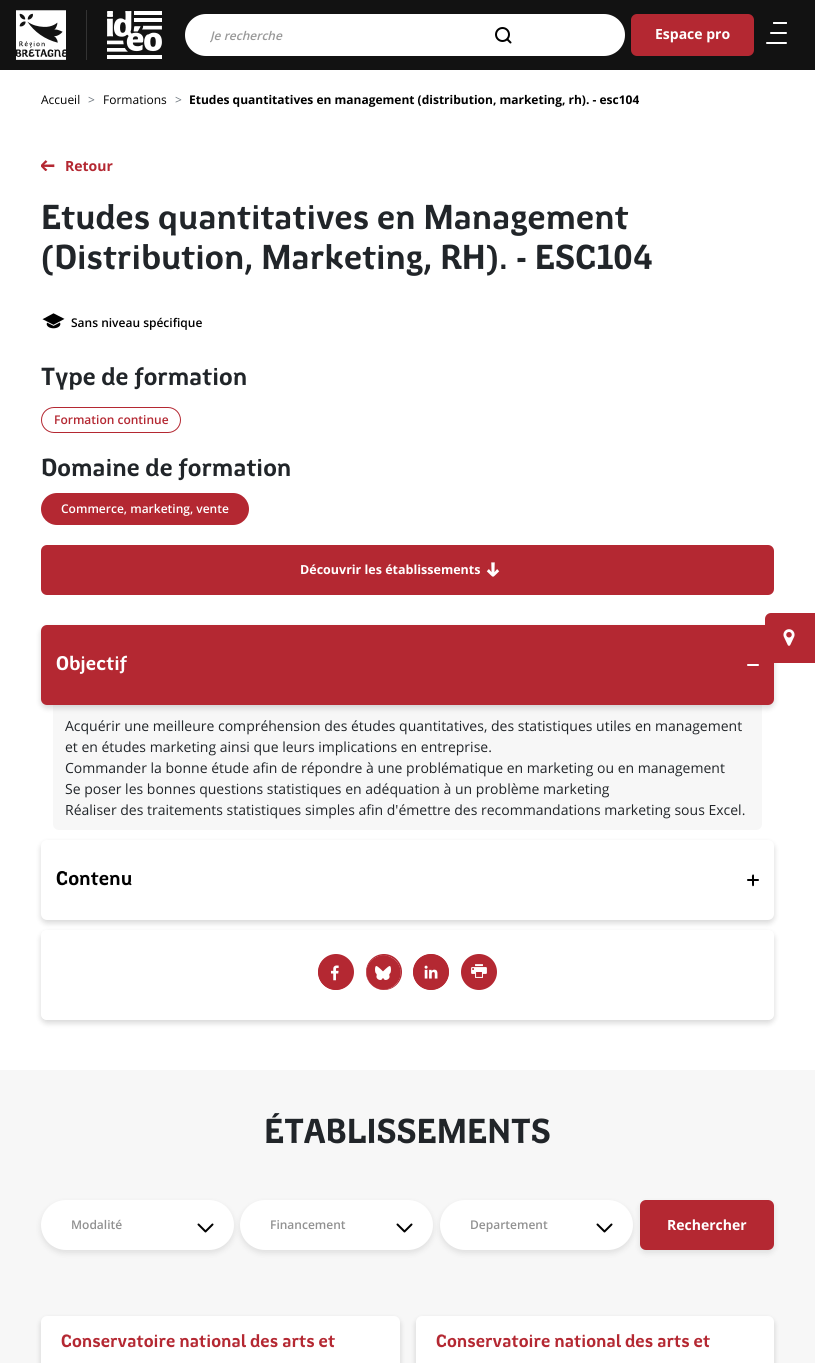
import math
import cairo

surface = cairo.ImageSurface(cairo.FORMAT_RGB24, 815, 1363)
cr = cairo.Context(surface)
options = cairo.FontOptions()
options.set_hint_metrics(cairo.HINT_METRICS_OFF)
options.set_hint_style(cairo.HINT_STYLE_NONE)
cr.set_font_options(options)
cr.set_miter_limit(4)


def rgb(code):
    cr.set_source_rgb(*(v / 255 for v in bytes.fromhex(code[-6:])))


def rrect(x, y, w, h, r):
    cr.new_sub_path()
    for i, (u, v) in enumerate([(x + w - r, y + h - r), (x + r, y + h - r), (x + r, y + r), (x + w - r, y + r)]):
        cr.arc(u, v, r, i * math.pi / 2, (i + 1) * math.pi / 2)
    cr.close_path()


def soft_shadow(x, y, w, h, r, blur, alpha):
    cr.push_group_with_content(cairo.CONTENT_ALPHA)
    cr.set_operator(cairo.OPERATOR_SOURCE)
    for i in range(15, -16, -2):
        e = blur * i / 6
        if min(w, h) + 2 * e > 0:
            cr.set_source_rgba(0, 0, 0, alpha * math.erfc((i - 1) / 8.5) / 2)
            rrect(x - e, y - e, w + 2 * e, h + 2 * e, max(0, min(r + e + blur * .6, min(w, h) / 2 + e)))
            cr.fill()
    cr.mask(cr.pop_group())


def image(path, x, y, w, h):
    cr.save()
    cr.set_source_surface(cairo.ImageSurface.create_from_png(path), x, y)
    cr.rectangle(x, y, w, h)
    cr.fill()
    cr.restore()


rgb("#ffffff")
cr.paint()
rgb("#121212")
cr.rectangle(0, 0, 815, 70)
cr.fill()
image("img/1.png", 16, 10, 50, 50)
rgb("#333333")
cr.rectangle(86, 10, 1, 50)
cr.fill()
image("img/2.png", 107, 11, 55, 48)
rgb("#ffffff")
rrect(185, 14, 440, 42, 21)
cr.fill()
cr.arc(502.5, 34.5, 6.5, 0, 2 * math.pi)
rgb("#000000")
cr.stroke()
cr.new_path()
cr.move_to(507.5, 39.5)
cr.line_to(510.5, 42.5)
cr.set_line_cap(cairo.LINE_CAP_ROUND)
cr.stroke()
rgb("#b42832")
rrect(631, 14, 123, 42, 6)
cr.fill()
rgb("#ffffff")
rrect(773, 22, 14, 2, 0.5)
cr.fill()
rrect(770, 32, 17, 2, 1)
cr.fill()
rrect(766, 42, 21, 2, 1)
cr.fill()
image("img/3.png", 41, 160, 14, 11)
image("img/4.png", 42, 313, 23, 16)
rrect(41.5, 407.5, 139, 25, 12.5)
rgb("#b42832")
cr.set_line_width(1)
cr.set_line_cap(cairo.LINE_CAP_BUTT)
cr.stroke()
rrect(41, 493, 208, 32, 16)
cr.fill()
rrect(41, 545, 733, 50, 6)
cr.fill()
image("img/5.png", 486, 562, 14, 15)
rgb("#f7f7f7")
cr.new_path()
cr.move_to(53, 705)
cr.line_to(762, 705)
cr.line_to(762, 824)
cr.curve_to(762, 827.5, 759.5, 830, 756, 830)
cr.line_to(59, 830)
cr.curve_to(55.5, 830, 53, 827.5, 53, 824)
cr.close_path()
cr.fill()
rgb("#000000")
soft_shadow(41, 628, 733, 80, 6, 3, 0.16)
rgb("#b42832")
rrect(41, 625, 733, 80, 6)
cr.fill()
rgb("#ffffff")
rrect(747, 664, 12, 2, 1)
cr.fill()
rgb("#000000")
soft_shadow(41, 843, 733, 80, 6, 3, 0.16)
rgb("#ffffff")
rrect(41, 840, 733, 80, 6)
cr.fill()
rgb("#000000")
rrect(747, 879, 12, 2, 1)
cr.fill()
cr.new_path()
cr.move_to(754, 875.5)
cr.line_to(754, 885.5)
cr.line_to(753.5, 886)
cr.curve_to(752, 887, 752, 884.5, 752, 883.5)
cr.line_to(752, 878.5)
cr.curve_to(752, 878, 751.5, 874.5, 753, 874.5)
cr.curve_to(754, 874.5, 754, 875, 754, 875.5)
cr.close_path()
cr.fill()
cr.save()
cr.set_fill_rule(cairo.FILL_RULE_EVEN_ODD)
cr.new_path()
cr.move_to(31, 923)
cr.line_to(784, 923)
cr.line_to(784, 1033)
cr.line_to(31, 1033)
cr.close_path()
cr.move_to(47, 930)
cr.line_to(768, 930)
cr.curve_to(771.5, 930, 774, 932.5, 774, 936)
cr.line_to(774, 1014)
cr.curve_to(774, 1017.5, 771.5, 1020, 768, 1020)
cr.line_to(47, 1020)
cr.curve_to(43.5, 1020, 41, 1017.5, 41, 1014)
cr.line_to(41, 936)
cr.curve_to(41, 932.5, 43.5, 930, 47, 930)
cr.close_path()
cr.clip()
rgb("#000000")
soft_shadow(41, 933, 733, 90, 6, 3, 0.16)
cr.restore()
rgb("#b42832")
cr.arc(336, 972, 18, 0, 2 * math.pi)
cr.fill()
image("img/6.png", 318, 958, 32, 32)
cr.arc(384, 972, 18, 0, 2 * math.pi)
cr.fill()
image("img/7.png", 366, 955, 35, 35)
cr.arc(431, 972, 18, 0, 2 * math.pi)
cr.fill()
image("img/8.png", 413, 954, 36, 36)
cr.arc(479, 972, 18, 0, 2 * math.pi)
cr.fill()
image("img/9.png", 471, 964, 16, 14)
rgb("#f7f7f7")
cr.rectangle(0, 1070, 815, 293)
cr.fill()
rgb("#000000")
soft_shadow(41, 1203, 193, 50, 25, 3, 0.1)
rgb("#ffffff")
rrect(41, 1200, 193, 50, 25)
cr.fill()
cr.new_path()
cr.move_to(198.5, 1224.5)
cr.line_to(205.5, 1231.5)
cr.line_to(212.5, 1224.5)
rgb("#000000")
cr.set_line_width(2)
cr.set_line_cap(cairo.LINE_CAP_ROUND)
cr.set_line_join(cairo.LINE_JOIN_ROUND)
cr.stroke()
rgb("#000000")
soft_shadow(240, 1203, 193, 50, 25, 3, 0.1)
rgb("#ffffff")
rrect(240, 1200, 193, 50, 25)
cr.fill()
cr.new_path()
cr.move_to(397.5, 1224.5)
cr.line_to(404.5, 1231.5)
cr.line_to(411.5, 1224.5)
rgb("#000000")
cr.stroke()
rgb("#000000")
soft_shadow(640, 1203, 134, 50, 6, 3, 0.1)
rgb("#b42832")
rrect(640, 1200, 134, 50, 6)
cr.fill()
rgb("#000000")
soft_shadow(440, 1203, 193, 50, 25, 3, 0.1)
rgb("#ffffff")
rrect(440, 1200, 193, 50, 25)
cr.fill()
cr.new_path()
cr.move_to(597.5, 1224.5)
cr.line_to(604.5, 1231.5)
cr.line_to(611.5, 1224.5)
rgb("#000000")
cr.stroke()
rgb("#000000")
soft_shadow(41, 1319, 359, 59, 6, 3, 0.16)
rgb("#ffffff")
rrect(41, 1316, 359, 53, 6)
cr.fill()
rgb("#000000")
soft_shadow(416, 1319, 358, 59, 6, 3, 0.16)
rgb("#ffffff")
rrect(416, 1316, 358, 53, 6)
cr.fill()
rgb("#b42832")
rrect(765, 613, 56, 50, 6)
cr.fill()
image("img/10.png", 783, 629, 12, 17)
cr.save()
cr.rectangle(210, 27, 363, 17)
cr.clip()
cr.select_font_face("Open Sans SemiBold", cairo.FONT_SLANT_ITALIC)
cr.set_font_size(12)
rgb("#999999")
cr.move_to(210, 40)
cr.show_text("Je recherche")
cr.restore()
cr.select_font_face("Open Sans", cairo.FONT_SLANT_NORMAL, cairo.FONT_WEIGHT_BOLD)
cr.set_font_size(14)
rgb("#ffffff")
cr.move_to(655, 39)
cr.show_text("Espace pro")
cr.select_font_face("Open Sans")
cr.set_font_size(12)
rgb("#000000")
cr.move_to(41, 104)
cr.show_text("Accueil")
rgb("#6c757d")
cr.move_to(88, 104)
cr.show_text(">")
rgb("#000000")
cr.move_to(103, 104)
cr.show_text("Formations")
rgb("#6c757d")
cr.move_to(175, 104)
cr.show_text(">")
cr.select_font_face("Open Sans", cairo.FONT_SLANT_NORMAL, cairo.FONT_WEIGHT_BOLD)
rgb("#000000")
cr.move_to(189, 104)
cr.show_text("Etudes quantitatives en management (distribution, marketing, rh). - esc104")
cr.set_font_size(14)
rgb("#b42832")
cr.move_to(65, 171)
cr.show_text("Retour")
cr.select_font_face("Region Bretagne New", cairo.FONT_SLANT_NORMAL, cairo.FONT_WEIGHT_BOLD)
cr.set_font_size(35)
rgb("#212529")
cr.move_to(41, 229)
cr.show_text("Etudes quantitatives en Management")
cr.move_to(41, 269)
cr.show_text("(Distribution, Marketing, RH). - ESC104")
cr.select_font_face("Open Sans SemiBold")
cr.set_font_size(12)
rgb("#000000")
cr.move_to(71, 327)
cr.show_text("Sans niveau spécifique")
cr.select_font_face("Region Bretagne New", cairo.FONT_SLANT_NORMAL, cairo.FONT_WEIGHT_BOLD)
cr.set_font_size(25)
rgb("#212529")
cr.move_to(41, 385)
cr.show_text("Type de formation")
cr.select_font_face("Open Sans SemiBold")
cr.set_font_size(12)
rgb("#b42832")
cr.move_to(54, 424)
cr.show_text("Formation continue")
cr.select_font_face("Region Bretagne New", cairo.FONT_SLANT_NORMAL, cairo.FONT_WEIGHT_BOLD)
cr.set_font_size(25)
rgb("#212529")
cr.move_to(41, 476)
cr.show_text("Domaine de formation")
cr.select_font_face("Open Sans SemiBold")
cr.set_font_size(12)
rgb("#ffffff")
cr.move_to(61, 513)
cr.show_text("Commerce, marketing, vente")
cr.select_font_face("Open Sans", cairo.FONT_SLANT_NORMAL, cairo.FONT_WEIGHT_BOLD)
cr.set_font_size(12.5)
cr.move_to(300, 574)
cr.show_text("Découvrir les établissements")
cr.select_font_face("Region Bretagne New", cairo.FONT_SLANT_NORMAL, cairo.FONT_WEIGHT_BOLD)
cr.set_font_size(20)
cr.move_to(56, 670)
cr.show_text("Objectif")
cr.select_font_face("Open Sans")
cr.set_font_size(14)
rgb("#212529")
for x, y, s in [
    (65, 731, "Acquérir une meilleure compréhension des études quantitatives, des statistiques utiles en management"),
    (65, 752, "et en études marketing ainsi que leurs implications en entreprise."),
    (65, 773, "Commander la bonne étude afin de répondre à une problématique en marketing ou en management"),
    (65, 794, "Se poser les bonnes questions statistiques en adéquation à un problème marketing"),
    (65, 815, "Réaliser des traitements statistiques simples afin d'émettre des recommandations marketing sous Excel."),
]:
    cr.move_to(x, y)
    cr.show_text(s)
cr.select_font_face("Region Bretagne New", cairo.FONT_SLANT_NORMAL, cairo.FONT_WEIGHT_BOLD)
cr.set_font_size(20)
rgb("#000000")
cr.move_to(56, 885)
cr.show_text("Contenu")
cr.set_font_size(35)
rgb("#212529")
cr.move_to(264, 1143)
cr.show_text("ÉTABLISSEMENTS")
cr.select_font_face("Open Sans SemiBold")
cr.set_font_size(12)
rgb("#919191")
for x, y, s in [
    (71, 1229, "Modalité"),
    (270, 1229, "Financement"),
    (470, 1229, "Departement"),
]:
    cr.move_to(x, y)
    cr.show_text(s)
cr.select_font_face("Open Sans", cairo.FONT_SLANT_NORMAL, cairo.FONT_WEIGHT_BOLD)
cr.set_font_size(14)
rgb("#ffffff")
cr.move_to(667, 1230)
cr.show_text("Rechercher")
cr.select_font_face("Region Bretagne New", cairo.FONT_SLANT_NORMAL, cairo.FONT_WEIGHT_BOLD)
cr.set_font_size(18)
rgb("#b42832")
cr.move_to(61, 1347)
cr.show_text("Conservatoire national des arts et")
cr.move_to(436, 1347)
cr.show_text("Conservatoire national des arts et")
surface.write_to_png("page.png")
